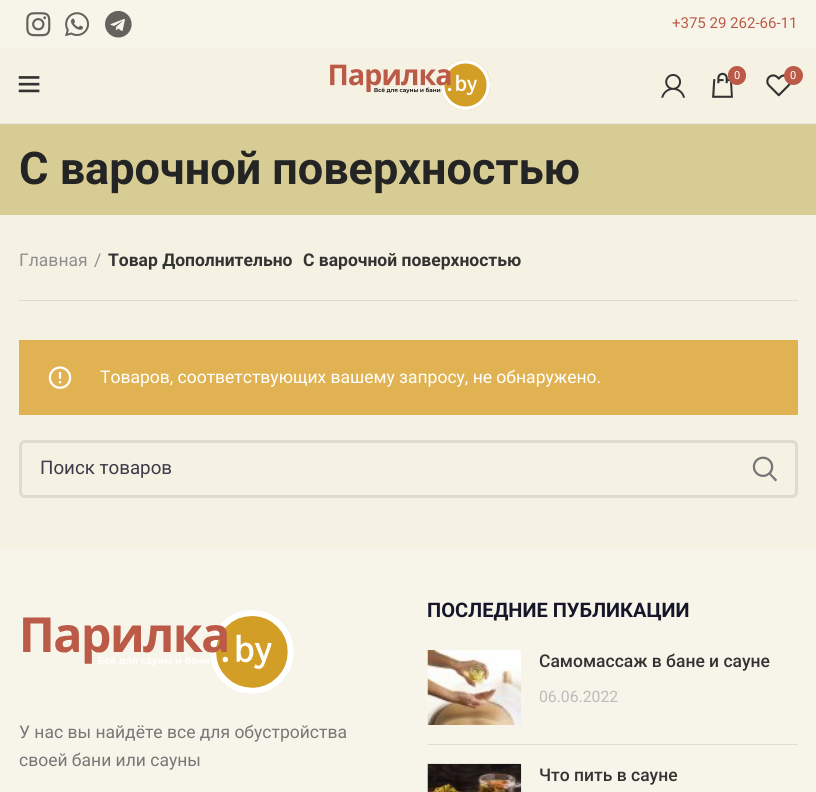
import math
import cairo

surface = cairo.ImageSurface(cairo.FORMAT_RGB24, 816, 792)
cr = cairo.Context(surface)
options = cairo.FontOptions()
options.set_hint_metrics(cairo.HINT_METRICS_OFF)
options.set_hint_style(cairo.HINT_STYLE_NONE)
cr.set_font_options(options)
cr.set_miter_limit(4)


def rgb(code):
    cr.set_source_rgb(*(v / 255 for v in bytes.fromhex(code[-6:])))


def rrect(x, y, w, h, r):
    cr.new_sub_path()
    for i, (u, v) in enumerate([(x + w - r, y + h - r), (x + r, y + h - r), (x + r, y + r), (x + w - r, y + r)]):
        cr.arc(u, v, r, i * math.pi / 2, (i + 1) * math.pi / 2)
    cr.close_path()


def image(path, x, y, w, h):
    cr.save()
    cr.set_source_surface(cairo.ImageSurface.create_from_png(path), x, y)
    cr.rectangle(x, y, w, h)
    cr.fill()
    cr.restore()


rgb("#f5f2e3")
cr.paint()
rgb("#f7f5e9")
cr.rectangle(0, 0, 816, 48)
cr.fill()
image("img/1.png", 26, 12, 25, 25)
image("img/2.png", 65, 12, 24, 25)
image("img/3.png", 105, 10, 27, 28)
rgb("#e8e8e8")
cr.rectangle(0, 123, 816, 1)
cr.fill()
image("img/4.png", 330, 60, 160, 50)
image("img/5.png", 661, 74, 24, 24)
image("img/6.png", 712, 72, 21, 26)
rgb("#bc5a48")
rrect(728, 66, 18, 19, 9)
cr.fill()
image("img/7.png", 766, 74, 25, 23)
cr.arc(793.5, 75.5, 9.5, 0, 2 * math.pi)
cr.fill()
image("img/8.png", 18, 76, 22, 17)
for x, y, w, h, color in [
    (0, 124, 816, 91, "#d7cd94"),
    (19, 300, 779, 1, "#dedbcf"),
    (19, 340, 779, 75, "#e0b252"),
]:
    rgb(color)
    cr.rectangle(x, y, w, h)
    cr.fill()
image("img/9.png", 48, 366, 24, 23)
rrect(20.5, 441.5, 776, 55, 4.5)
rgb("#dedbcf")
cr.set_line_width(3)
cr.stroke()
image("img/10.png", 752, 456, 26, 26)
rgb("#f7f5e9")
cr.rectangle(0, 548, 816, 244)
cr.fill()
image("img/11.png", 23, 610, 271, 84)
rgb("#dddcd2")
cr.rectangle(428, 744, 370, 1)
cr.fill()
image("img/12.png", 427, 650, 94, 75)
image("img/13.png", 427, 763, 95, 29)
cr.select_font_face("Roboto")
cr.set_font_size(15)
rgb("#bc5a48")
cr.move_to(672, 28)
cr.show_text("+375 29 262-66-11")
cr.set_font_size(11)
rgb("#ffffff")
cr.move_to(734, 79)
cr.show_text("0")
cr.move_to(790, 79)
cr.show_text("0")
cr.select_font_face("Roboto", cairo.FONT_SLANT_NORMAL, cairo.FONT_WEIGHT_BOLD)
cr.set_font_size(45)
rgb("#242424")
cr.move_to(19, 184)
cr.show_text("С варочной поверхностью")
cr.select_font_face("Roboto")
cr.set_font_size(17.5)
rgb("#8e8e8e")
cr.move_to(19, 266)
cr.show_text("Главная")
cr.move_to(94, 266)
cr.show_text("/")
cr.select_font_face("Roboto", cairo.FONT_SLANT_NORMAL, cairo.FONT_WEIGHT_BOLD)
rgb("#333333")
cr.move_to(108, 266)
cr.show_text("Товар Дополнительно")
cr.move_to(303, 266)
cr.show_text("С варочной поверхностью")
cr.select_font_face("Roboto")
rgb("#ffffff")
cr.move_to(100, 383)
cr.show_text("Товаров, соответствующих вашему запросу, не обнаружено.")
cr.set_font_size(18.75)
rgb("#3b3b49")
cr.move_to(40, 474)
cr.show_text("Поиск товаров")
cr.set_font_size(17.5)
rgb("#777777")
cr.move_to(19, 738)
cr.show_text("У нас вы найдёте все для обустройства")
cr.move_to(19, 766)
cr.show_text("своей бани или сауны")
cr.select_font_face("Roboto", cairo.FONT_SLANT_NORMAL, cairo.FONT_WEIGHT_BOLD)
cr.set_font_size(20)
rgb("#15162a")
cr.move_to(427, 617)
cr.show_text("ПОСЛЕДНИЕ ПУБЛИКАЦИИ")
cr.select_font_face("Roboto Medium")
cr.set_font_size(17.5)
rgb("#333333")
cr.move_to(539, 667)
cr.show_text("Самомассаж в бане и сауне")
cr.select_font_face("Roboto")
cr.set_font_size(15.75)
rgb("#bbbbbb")
cr.move_to(539, 702)
cr.show_text("06.06.2022")
cr.select_font_face("Roboto Medium")
cr.set_font_size(17.5)
rgb("#333333")
cr.move_to(539, 781)
cr.show_text("Что пить в сауне")
surface.write_to_png("page.png")
